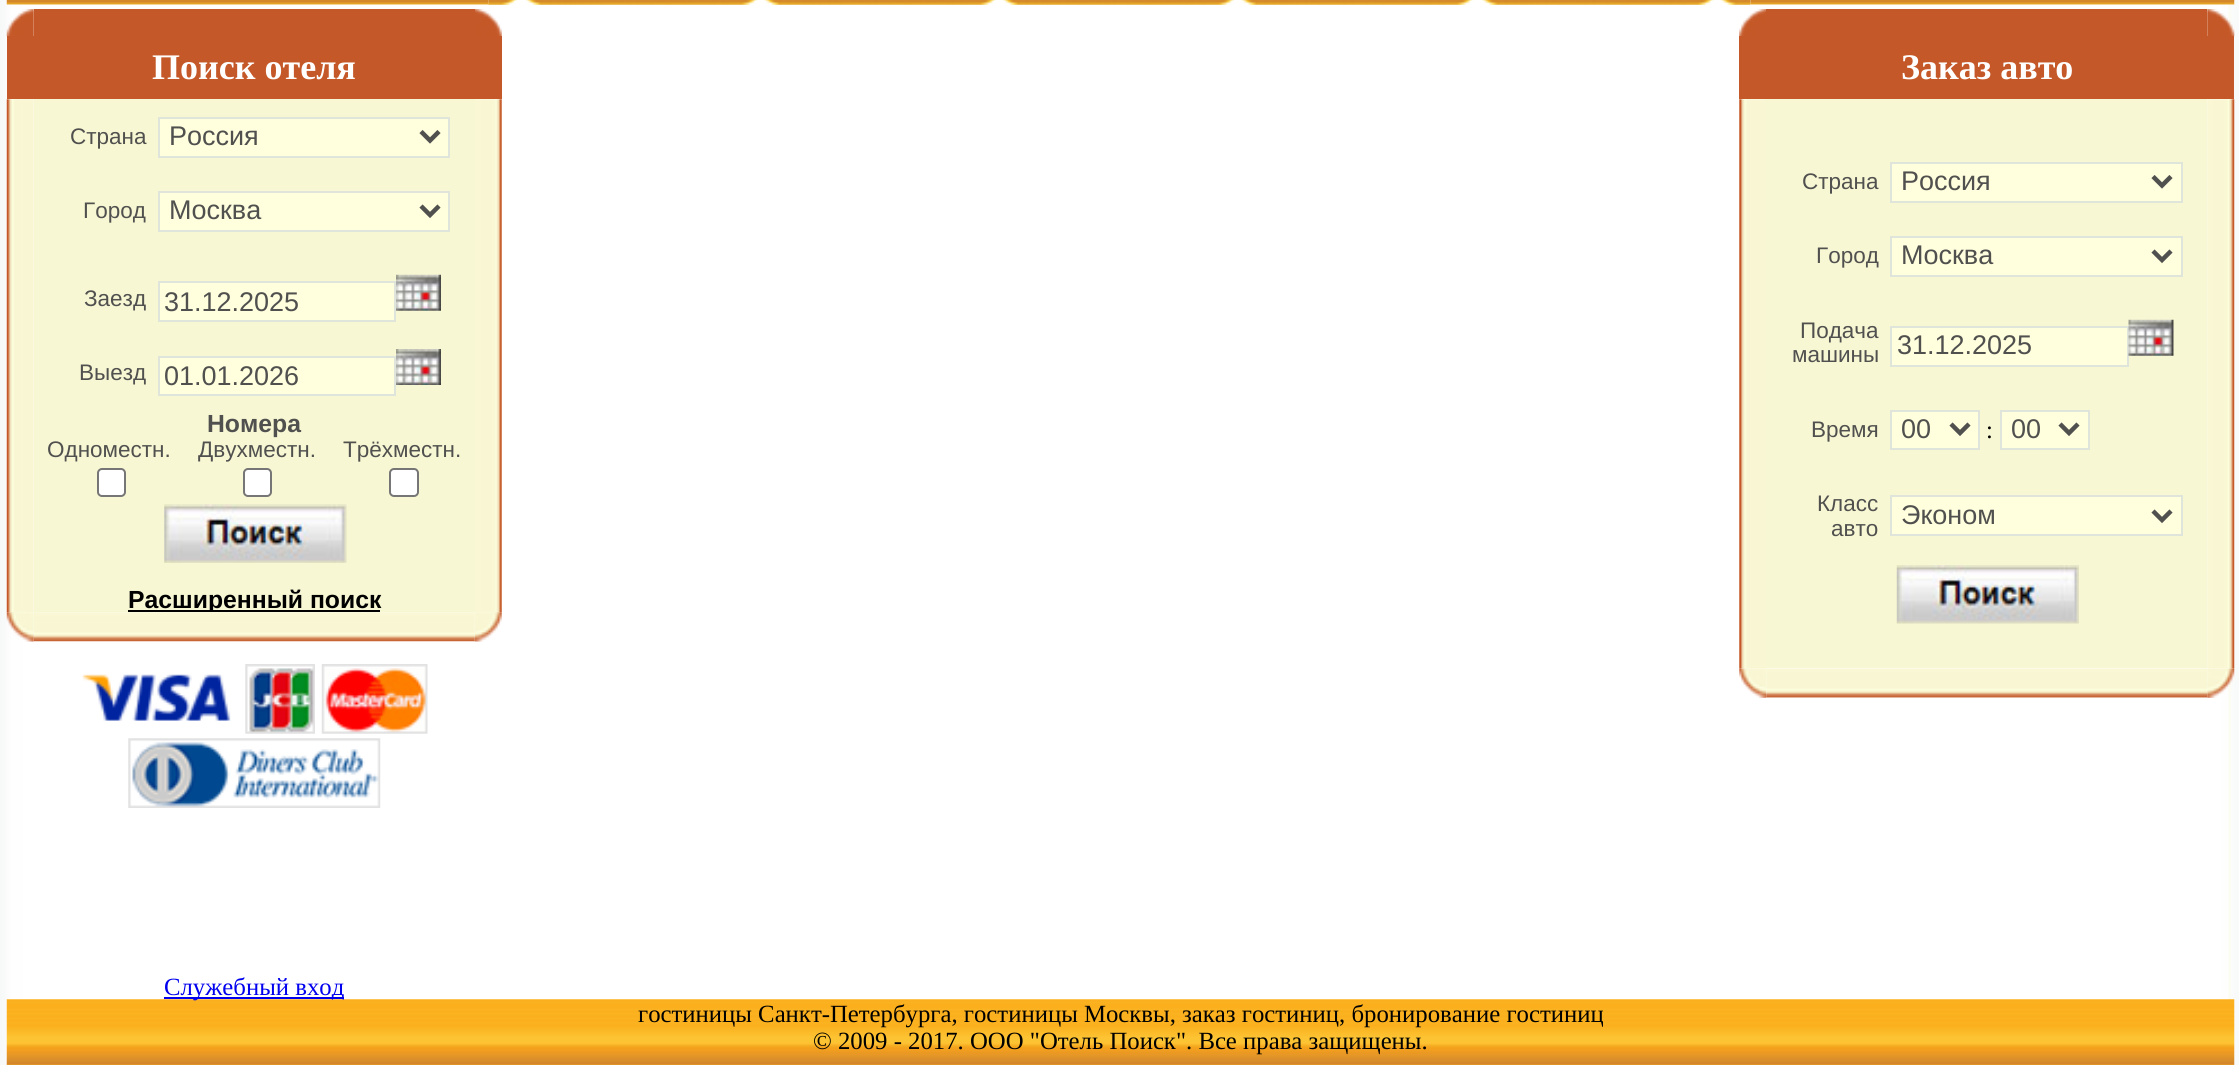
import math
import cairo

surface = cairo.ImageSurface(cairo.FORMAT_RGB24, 2239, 1065)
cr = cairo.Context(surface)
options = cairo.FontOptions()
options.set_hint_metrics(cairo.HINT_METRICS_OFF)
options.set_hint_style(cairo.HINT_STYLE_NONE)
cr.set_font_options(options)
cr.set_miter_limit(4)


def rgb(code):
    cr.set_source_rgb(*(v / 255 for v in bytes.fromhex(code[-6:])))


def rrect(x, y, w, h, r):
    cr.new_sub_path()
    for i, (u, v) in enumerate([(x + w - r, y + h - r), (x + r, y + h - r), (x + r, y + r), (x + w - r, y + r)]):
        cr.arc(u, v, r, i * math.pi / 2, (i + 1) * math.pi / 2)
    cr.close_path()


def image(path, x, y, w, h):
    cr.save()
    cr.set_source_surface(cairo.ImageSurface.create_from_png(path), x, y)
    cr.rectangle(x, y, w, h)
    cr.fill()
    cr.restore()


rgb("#ffffff")
cr.paint()
image("img/1.png", 0, 0, 2239, 1065)
image("img/2.png", 6, 0, 483, 5)
image("img/3.png", 488, 0, 30, 5)
image("img/4.png", 526, 0, 232, 5)
image("img/5.png", 764, 0, 232, 5)
image("img/4.png", 1003, 0, 232, 5)
image("img/6.png", 1241, 0, 235, 5)
image("img/7.png", 1482, 0, 232, 5)
image("img/8.png", 1720, 0, 31, 5)
image("img/9.png", 1750, 0, 485, 5)
image("img/10.png", 6, 9, 28, 28)
rgb("#c55828")
cr.rectangle(34, 9, 441, 27)
cr.fill()
image("img/11.png", 475, 9, 27, 27)
cr.rectangle(7, 36, 495, 63)
cr.fill()
image("img/12.png", 6, 99, 28, 514)
image("img/16.png", 474, 99, 28, 514)
rgb("#f8f7d4")
cr.rectangle(34, 99, 441, 513)
cr.fill()
rgb("#fffedd")
cr.rectangle(159, 118, 290, 39)
cr.fill_preserve()
rgb("#dfe5db")
cr.stroke()
cr.new_path()
cr.move_to(421, 131.5)
cr.line_to(430, 140.5)
cr.line_to(439, 131.5)
rgb("#50504f")
cr.set_line_width(4.5)
cr.stroke()
rgb("#fffedd")
cr.rectangle(159, 192, 290, 39)
cr.fill_preserve()
rgb("#dfe5db")
cr.set_line_width(2)
cr.stroke()
cr.new_path()
cr.move_to(421, 206)
cr.line_to(430, 215)
cr.line_to(439, 206)
rgb("#50504f")
cr.set_line_width(4.5)
cr.stroke()
rgb("#fffedd")
cr.rectangle(159, 282, 236, 39)
cr.fill_preserve()
rgb("#dfe5db")
cr.set_line_width(2)
cr.stroke()
image("img/13.png", 396, 274, 45, 37)
rgb("#fffedd")
cr.rectangle(159, 357, 236, 38)
cr.fill_preserve()
rgb("#dfe5db")
cr.stroke()
image("img/14.png", 396, 349, 45, 36)
rgb("#ffffff")
rrect(98, 469, 27, 27, 4)
cr.fill_preserve()
rgb("#767676")
cr.stroke()
rgb("#ffffff")
rrect(244, 469, 27, 27, 4)
cr.fill_preserve()
rgb("#767676")
cr.stroke()
rgb("#ffffff")
rrect(390, 469, 28, 27, 4)
cr.fill_preserve()
rgb("#767676")
cr.stroke()
image("img/15.png", 164, 504, 183, 59)
rgb("#000000")
cr.rectangle(128, 610, 252, 2)
cr.fill()
image("img/18.png", 33, 612, 442, 30)
image("img/17.png", 6, 612, 28, 30)
image("img/19.png", 474, 612, 28, 30)
image("img/20.png", 82, 674, 149, 47)
image("img/21.png", 245, 664, 70, 70)
image("img/22.png", 321, 664, 107, 70)
image("img/23.png", 128, 738, 253, 70)
rgb("#0000ee")
cr.rectangle(164, 997, 180, 2)
cr.fill()
image("img/24.png", 1739, 9, 27, 27)
rgb("#c55828")
cr.rectangle(1766, 9, 441, 27)
cr.fill()
image("img/25.png", 2207, 9, 28, 28)
cr.rectangle(1739, 36, 495, 63)
cr.fill()
image("img/26.png", 1739, 99, 28, 570)
rgb("#f8f7d4")
cr.rectangle(1766, 99, 441, 569)
cr.fill()
rgb("#fffedd")
cr.rectangle(1891, 163, 291, 39)
cr.fill_preserve()
rgb("#dfe5db")
cr.stroke()
cr.new_path()
cr.move_to(2153, 176.5)
cr.line_to(2162, 185.5)
cr.line_to(2171, 176.5)
rgb("#50504f")
cr.set_line_width(4.5)
cr.stroke()
rgb("#fffedd")
cr.rectangle(1891, 237, 291, 39)
cr.fill_preserve()
rgb("#dfe5db")
cr.set_line_width(2)
cr.stroke()
cr.new_path()
cr.move_to(2153, 251)
cr.line_to(2162, 260)
cr.line_to(2171, 251)
rgb("#50504f")
cr.set_line_width(4.5)
cr.stroke()
rgb("#fffedd")
cr.rectangle(1891, 327, 237, 39)
cr.fill_preserve()
rgb("#dfe5db")
cr.set_line_width(2)
cr.stroke()
image("img/27.png", 2128, 319, 46, 37)
rgb("#fffedd")
cr.rectangle(1891, 411, 88, 38)
cr.fill_preserve()
rgb("#dfe5db")
cr.stroke()
cr.new_path()
cr.move_to(1951, 424)
cr.line_to(1960, 433)
cr.line_to(1969, 424)
rgb("#50504f")
cr.set_line_width(4.5)
cr.stroke()
rgb("#fffedd")
cr.rectangle(2001, 411, 88, 38)
cr.fill_preserve()
rgb("#dfe5db")
cr.set_line_width(2)
cr.stroke()
cr.new_path()
cr.move_to(2060, 424)
cr.line_to(2069, 433)
cr.line_to(2078, 424)
rgb("#50504f")
cr.set_line_width(4.5)
cr.stroke()
rgb("#fffedd")
cr.rectangle(1891, 496, 291, 39)
cr.fill_preserve()
rgb("#dfe5db")
cr.set_line_width(2)
cr.stroke()
cr.new_path()
cr.move_to(2153, 511)
cr.line_to(2162, 520)
cr.line_to(2171, 511)
rgb("#50504f")
cr.set_line_width(4.5)
cr.stroke()
image("img/28.png", 1896, 565, 183, 59)
image("img/29.png", 2207, 99, 28, 570)
image("img/30.png", 1739, 668, 28, 30)
image("img/32.png", 2207, 668, 28, 30)
image("img/31.png", 1766, 668, 442, 30)
image("img/33.png", 6, 999, 2229, 66)
cr.select_font_face("Liberation Serif", cairo.FONT_SLANT_NORMAL, cairo.FONT_WEIGHT_BOLD)
cr.set_font_size(36)
rgb("#ffffff")
cr.move_to(152, 79)
cr.show_text("Поиск отеля")
cr.select_font_face("Liberation Sans")
cr.set_font_size(22.5)
rgb("#50504f")
cr.move_to(70, 144)
cr.show_text("Страна")
cr.set_font_size(27)
cr.move_to(169, 145)
cr.show_text("Россия")
cr.set_font_size(22.5)
cr.move_to(83, 218)
cr.show_text("Город")
cr.set_font_size(27)
cr.move_to(169, 219)
cr.show_text("Москва")
cr.set_font_size(22.5)
cr.move_to(84, 306)
cr.show_text("Заезд")
cr.set_font_size(27)
cr.move_to(164, 311)
cr.show_text("31.12.2025")
cr.set_font_size(22.5)
cr.move_to(79, 380)
cr.show_text("Выезд")
cr.set_font_size(27)
cr.move_to(164, 385)
cr.show_text("01.01.2026")
cr.select_font_face("Liberation Sans", cairo.FONT_SLANT_NORMAL, cairo.FONT_WEIGHT_BOLD)
cr.set_font_size(24.75)
cr.move_to(207, 432)
cr.show_text("Номера")
cr.select_font_face("Liberation Sans")
cr.set_font_size(22.5)
for x, y, s in [
    (47, 457, "Одноместн."),
    (198, 457, "Двухместн."),
    (343, 457, "Трёхместн."),
]:
    cr.move_to(x, y)
    cr.show_text(s)
cr.save()
cr.rectangle(34, 99, 441, 513)
cr.clip()
cr.select_font_face("Liberation Sans", cairo.FONT_SLANT_NORMAL, cairo.FONT_WEIGHT_BOLD)
cr.set_font_size(24.75)
rgb("#000000")
cr.move_to(128, 608)
cr.show_text("Расширенный поиск")
cr.restore()
cr.select_font_face("Liberation Serif")
cr.set_font_size(24.75)
rgb("#0000ee")
cr.move_to(164, 995)
cr.show_text("Служебный вход")
cr.select_font_face("Liberation Serif", cairo.FONT_SLANT_NORMAL, cairo.FONT_WEIGHT_BOLD)
cr.set_font_size(36)
rgb("#ffffff")
cr.move_to(1901, 79)
cr.show_text("Заказ авто")
cr.select_font_face("Liberation Sans")
cr.set_font_size(22.5)
rgb("#50504f")
cr.move_to(1802, 189)
cr.show_text("Страна")
cr.set_font_size(27)
cr.move_to(1901, 190)
cr.show_text("Россия")
cr.set_font_size(22.5)
cr.move_to(1816, 263)
cr.show_text("Город")
cr.set_font_size(27)
cr.move_to(1901, 264)
cr.show_text("Москва")
cr.set_font_size(22.5)
cr.move_to(1800, 338)
cr.show_text("Подача")
cr.move_to(1792, 362)
cr.show_text("машины")
cr.set_font_size(27)
cr.move_to(1897, 354)
cr.show_text("31.12.2025")
cr.set_font_size(22.5)
cr.move_to(1811, 437)
cr.show_text("Время")
cr.set_font_size(27)
cr.move_to(1901, 438)
cr.show_text("00")
cr.select_font_face("Liberation Serif")
cr.set_font_size(24.75)
rgb("#000000")
cr.move_to(1986, 438)
cr.show_text(":")
cr.save()
cr.rectangle(2012, 412, 40, 36)
cr.clip()
cr.select_font_face("Liberation Sans")
cr.set_font_size(27)
rgb("#50504f")
cr.move_to(2011, 438)
cr.show_text("00")
cr.restore()
cr.select_font_face("Liberation Sans")
cr.set_font_size(22.5)
rgb("#50504f")
cr.move_to(1817, 511)
cr.show_text("Класс")
cr.move_to(1831, 536)
cr.show_text("авто")
cr.set_font_size(27)
cr.move_to(1901, 524)
cr.show_text("Эконом")
cr.select_font_face("Liberation Serif")
cr.set_font_size(24.75)
rgb("#000000")
cr.move_to(638, 1022)
cr.show_text("гостиницы Санкт-Петербурга, гостиницы Москвы, заказ гостиниц, бронирование гостиниц")
cr.move_to(813, 1049)
cr.show_text("© 2009 - 2017. ООО \"Отель Поиск\". Все права защищены.")
surface.write_to_png("page.png")
